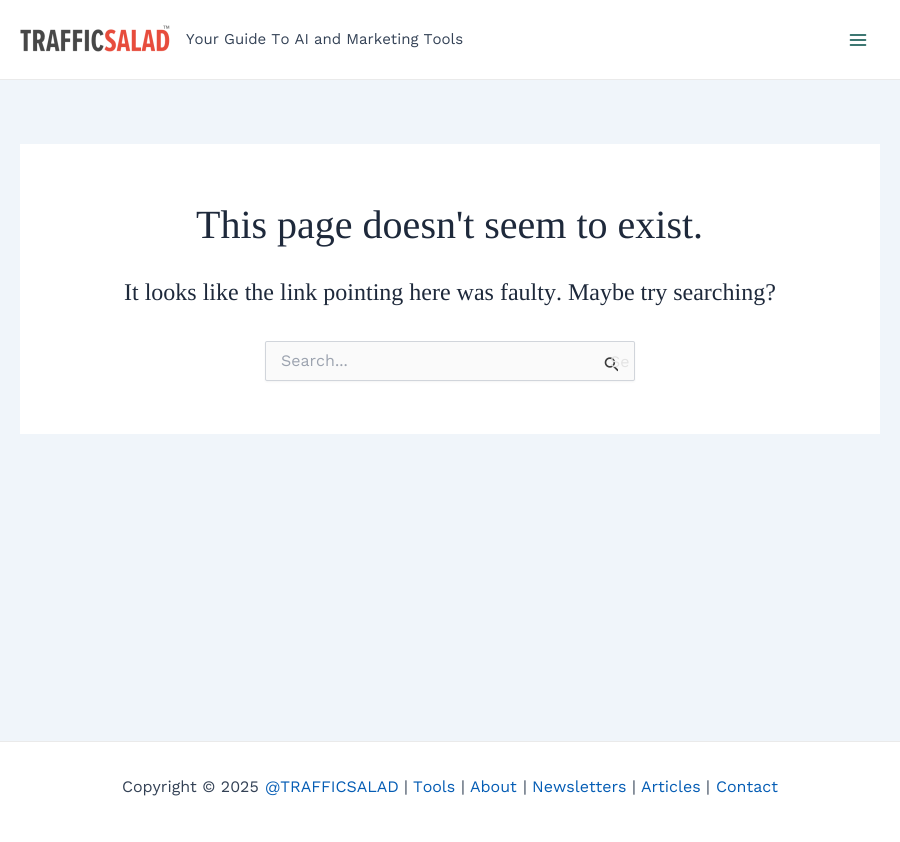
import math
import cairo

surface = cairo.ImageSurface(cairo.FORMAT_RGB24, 900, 842)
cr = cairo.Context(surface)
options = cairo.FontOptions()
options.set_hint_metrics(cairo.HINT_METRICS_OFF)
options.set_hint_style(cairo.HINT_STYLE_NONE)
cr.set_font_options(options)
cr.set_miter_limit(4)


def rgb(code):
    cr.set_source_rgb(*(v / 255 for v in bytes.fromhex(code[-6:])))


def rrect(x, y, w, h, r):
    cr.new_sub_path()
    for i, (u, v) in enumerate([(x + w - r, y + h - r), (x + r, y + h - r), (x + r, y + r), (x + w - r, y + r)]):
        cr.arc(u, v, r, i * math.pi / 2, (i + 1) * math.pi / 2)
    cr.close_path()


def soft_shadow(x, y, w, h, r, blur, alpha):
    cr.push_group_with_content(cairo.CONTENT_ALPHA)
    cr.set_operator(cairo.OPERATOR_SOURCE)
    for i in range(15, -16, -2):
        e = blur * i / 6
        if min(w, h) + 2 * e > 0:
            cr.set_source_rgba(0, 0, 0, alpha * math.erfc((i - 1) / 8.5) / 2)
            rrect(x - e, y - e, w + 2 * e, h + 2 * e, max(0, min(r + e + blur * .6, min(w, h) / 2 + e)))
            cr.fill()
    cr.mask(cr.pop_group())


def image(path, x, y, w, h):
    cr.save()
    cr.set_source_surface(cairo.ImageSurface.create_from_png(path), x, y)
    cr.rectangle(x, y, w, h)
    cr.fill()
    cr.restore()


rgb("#f0f5fa")
cr.paint()
rgb("#ffffff")
cr.rectangle(0, 0, 900, 79)
cr.fill()
rgb("#eaeaea")
cr.rectangle(0, 79, 900, 1)
cr.fill()
image("img/1.png", 20, 25, 150, 27)
image("img/2.png", 849, 34, 18, 12)
rgb("#ffffff")
cr.rectangle(20, 144, 860, 290)
cr.fill()
rgb("#000000")
soft_shadow(265, 342, 370, 40, 2, 1, 0.05)
rgb("#fafafa")
rrect(265.5, 341.5, 369, 39, 1.5)
cr.fill_preserve()
rgb("#d1d5db")
cr.set_line_width(1)
cr.stroke()
image("img/3.png", 604, 357, 14, 15)
rgb("#ffffff")
cr.rectangle(0, 742, 900, 100)
cr.fill()
rgb("#eaeaea")
cr.rectangle(0, 741, 900, 1)
cr.fill()
cr.select_font_face("Work Sans")
cr.set_font_size(15)
rgb("#334155")
cr.move_to(186, 44)
cr.show_text("Your Guide To AI and Marketing Tools")
cr.select_font_face("Liberation Serif")
cr.set_font_size(40)
rgb("#1e293b")
cr.move_to(196, 238)
cr.show_text("This page doesn't seem to exist.")
cr.set_font_size(24)
cr.move_to(124, 300)
cr.show_text("It looks like the link pointing here was faulty. Maybe try searching?")
cr.select_font_face("Work Sans")
cr.set_font_size(16)
rgb("#9ca3af")
cr.move_to(281, 366)
cr.show_text("Search...")
rgb("#e3e3e3")
cr.move_to(610, 367)
cr.show_text("Se")
rgb("#334155")
cr.move_to(122, 792)
cr.show_text("Copyright © 2025")
rgb("#045cb4")
cr.move_to(265, 792)
cr.show_text("@TRAFFICSALAD")
rgb("#334155")
cr.move_to(404, 792)
cr.show_text("|")
rgb("#045cb4")
cr.move_to(413, 792)
cr.show_text("Tools")
rgb("#334155")
cr.move_to(461, 792)
cr.show_text("|")
rgb("#045cb4")
cr.move_to(470, 792)
cr.show_text("About")
rgb("#334155")
cr.move_to(523, 792)
cr.show_text("|")
rgb("#045cb4")
cr.move_to(532, 792)
cr.show_text("Newsletters")
rgb("#334155")
cr.move_to(632, 792)
cr.show_text("|")
rgb("#045cb4")
cr.move_to(641, 792)
cr.show_text("Articles")
rgb("#334155")
cr.move_to(706, 792)
cr.show_text("|")
rgb("#045cb4")
cr.move_to(716, 792)
cr.show_text("Contact")
surface.write_to_png("page.png")
